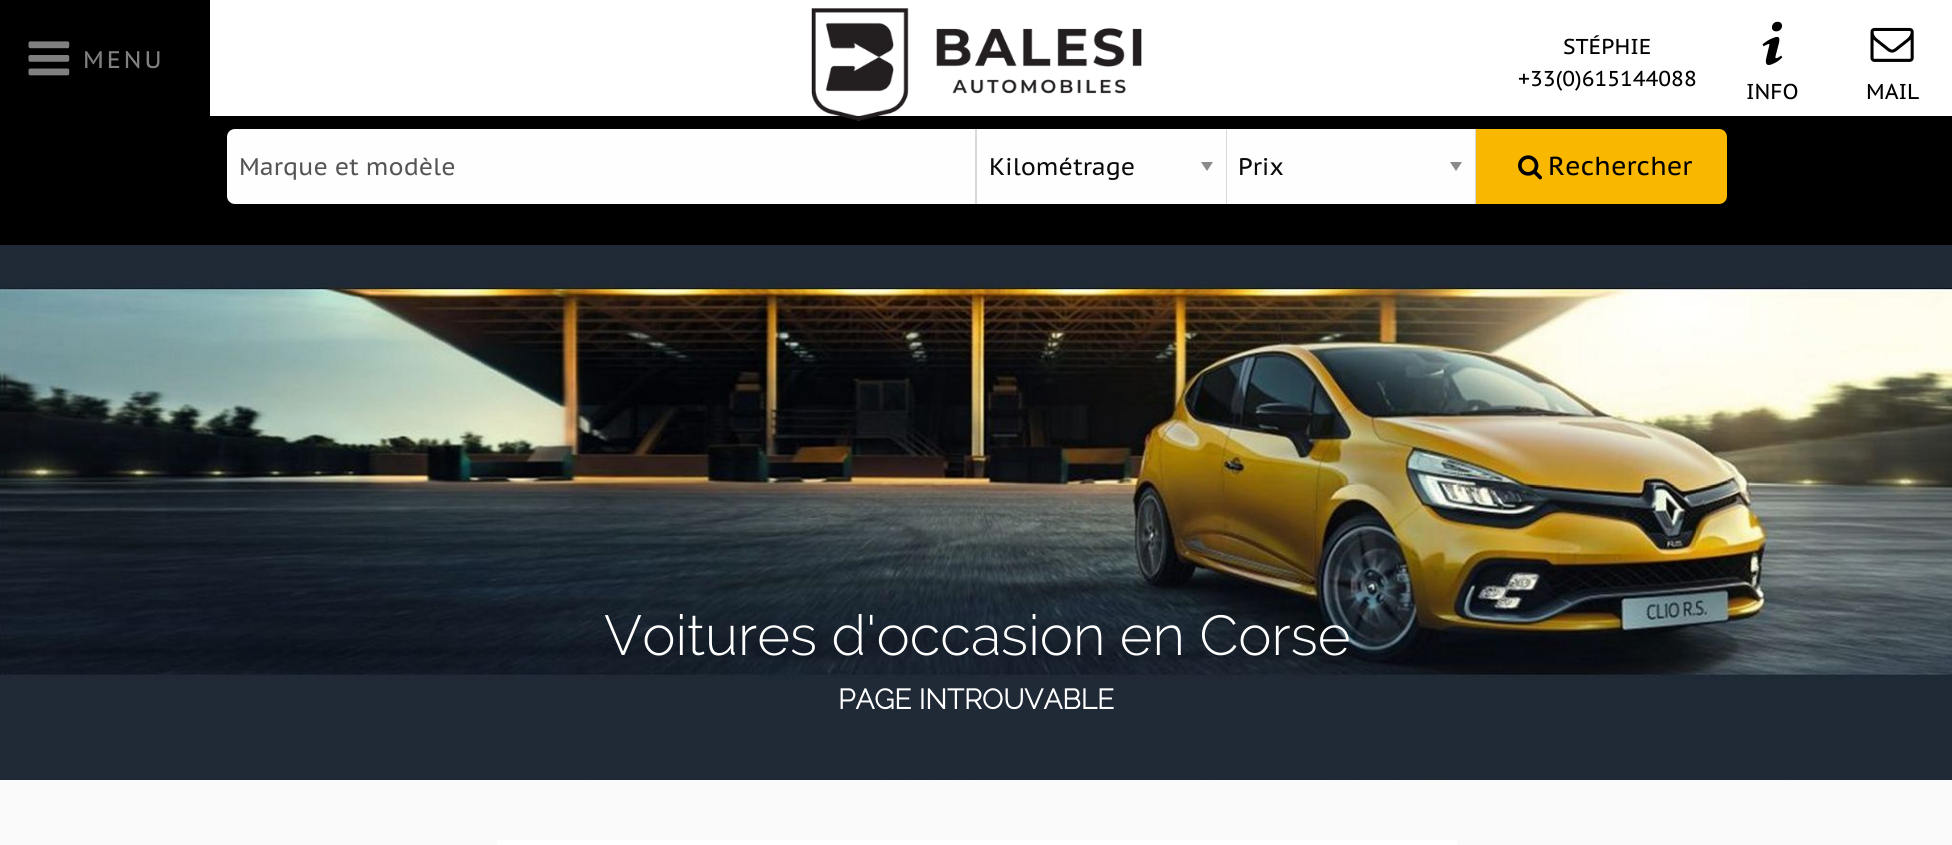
import math
import cairo

surface = cairo.ImageSurface(cairo.FORMAT_RGB24, 1952, 845)
cr = cairo.Context(surface)
options = cairo.FontOptions()
options.set_hint_metrics(cairo.HINT_METRICS_OFF)
options.set_hint_style(cairo.HINT_STYLE_NONE)
cr.set_font_options(options)
cr.set_miter_limit(4)


def rgb(code):
    cr.set_source_rgb(*(v / 255 for v in bytes.fromhex(code[-6:])))


def tracked(x, y, s, letter, word):
    cr.move_to(x, y)
    for ch in s:
        cr.show_text(ch)
        cr.rel_move_to(letter + word * (ch == ' '), 0)


def image(path, x, y, w, h):
    cr.save()
    cr.set_source_surface(cairo.ImageSurface.create_from_png(path), x, y)
    cr.rectangle(x, y, w, h)
    cr.fill()
    cr.restore()


rgb("#ffffff")
cr.paint()
rgb("#000000")
cr.rectangle(0, 0, 210, 116)
cr.fill()
image("img/1.png", 28, 41, 42, 35)
cr.rectangle(0, 116, 1952, 129)
cr.fill()
image("img/2.png", 811, 8, 331, 113)
image("img/3.png", 1762, 21, 21, 44)
image("img/4.png", 1870, 27, 44, 35)
rgb("#fefefe")
cr.new_path()
cr.move_to(235, 129)
cr.line_to(977, 129)
cr.line_to(977, 204)
cr.line_to(235, 204)
cr.curve_to(230.5, 204, 227, 200.5, 227, 196)
cr.line_to(227, 137)
cr.curve_to(227, 132.5, 230.5, 129, 235, 129)
cr.close_path()
cr.fill()
rgb("#d9d9d9")
cr.rectangle(975, 129, 2, 75)
cr.fill()
rgb("#fefefe")
cr.rectangle(977, 129, 249, 75)
cr.fill()
rgb("#8a8a8a")
cr.new_path()
cr.move_to(1201, 162)
cr.line_to(1213, 162)
cr.line_to(1207, 171)
cr.close_path()
cr.fill()
rgb("#d9d9d9")
cr.rectangle(1226, 129, 1, 75)
cr.fill()
rgb("#fefefe")
cr.rectangle(1227, 129, 248, 75)
cr.fill()
rgb("#8a8a8a")
cr.new_path()
cr.move_to(1450, 162)
cr.line_to(1462, 162)
cr.line_to(1456, 171)
cr.close_path()
cr.fill()
rgb("#d9d9d9")
cr.rectangle(1475, 129, 1, 75)
cr.fill()
rgb("#fab700")
cr.new_path()
cr.move_to(1476, 129)
cr.line_to(1719, 129)
cr.curve_to(1723.5, 129, 1727, 132.5, 1727, 137)
cr.line_to(1727, 196)
cr.curve_to(1727, 200.5, 1723.5, 204, 1719, 204)
cr.line_to(1476, 204)
cr.close_path()
cr.fill()
image("img/5.png", 1518, 155, 25, 25)
image("img/7.png", 0, 245, 1952, 535)
image("img/6.png", 0, 283, 1952, 497)
cr.set_source_rgba(0.125, 0.161, 0.212, 0.95)
cr.rectangle(1450, 779, 268, 1)
cr.fill()
rgb("#fafafa")
cr.rectangle(0, 780, 1952, 65)
cr.fill()
rgb("#ffffff")
cr.rectangle(497, 840, 960, 5)
cr.fill()
cr.select_font_face("PT Sans Caption")
cr.set_font_size(24)
rgb("#808080")
tracked(83, 68, "MENU", 3, 0)
cr.set_font_size(21.5)
rgb("#000000")
for x, y, s in [
    (1563, 54, "STÉPHIE"),
    (1518, 86, "+33(0)615144088"),
    (1746, 99, "INFO"),
    (1866, 99, "MAIL"),
]:
    cr.move_to(x, y)
    cr.show_text(s)
cr.set_font_size(24)
rgb("#555555")
cr.move_to(239, 175)
cr.show_text("Marque et modèle")
rgb("#0a0a0a")
cr.move_to(989, 175)
cr.show_text("Kilométrage")
cr.move_to(1238, 175)
cr.show_text("Prix")
cr.set_font_size(26)
rgb("#000000")
cr.move_to(1548, 175)
cr.show_text("Rechercher")
cr.select_font_face("Raleway Light")
cr.set_font_size(56.2)
rgb("#ffffff")
cr.move_to(604, 655)
cr.show_text("Voitures d'occasion en Corse")
cr.select_font_face("Raleway", cairo.FONT_SLANT_NORMAL, cairo.FONT_WEIGHT_BOLD)
cr.set_font_size(28)
cr.move_to(838, 709)
cr.show_text("PAGE INTROUVABLE")
surface.write_to_png("page.png")
